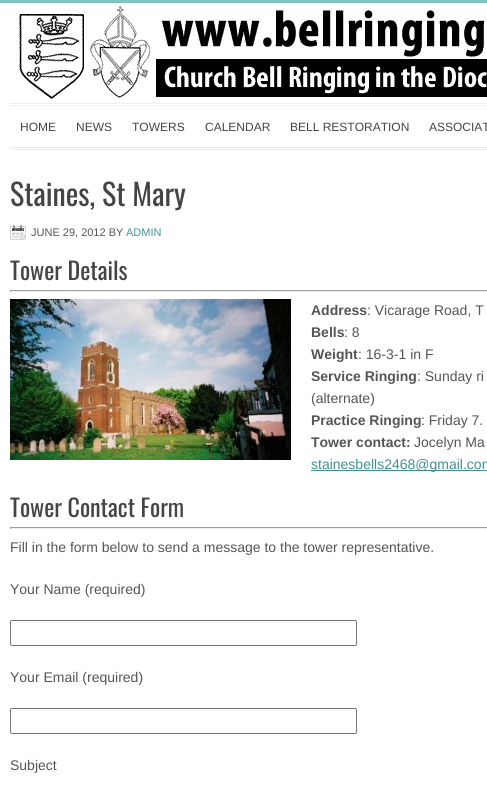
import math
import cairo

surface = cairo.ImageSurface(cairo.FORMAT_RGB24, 487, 786)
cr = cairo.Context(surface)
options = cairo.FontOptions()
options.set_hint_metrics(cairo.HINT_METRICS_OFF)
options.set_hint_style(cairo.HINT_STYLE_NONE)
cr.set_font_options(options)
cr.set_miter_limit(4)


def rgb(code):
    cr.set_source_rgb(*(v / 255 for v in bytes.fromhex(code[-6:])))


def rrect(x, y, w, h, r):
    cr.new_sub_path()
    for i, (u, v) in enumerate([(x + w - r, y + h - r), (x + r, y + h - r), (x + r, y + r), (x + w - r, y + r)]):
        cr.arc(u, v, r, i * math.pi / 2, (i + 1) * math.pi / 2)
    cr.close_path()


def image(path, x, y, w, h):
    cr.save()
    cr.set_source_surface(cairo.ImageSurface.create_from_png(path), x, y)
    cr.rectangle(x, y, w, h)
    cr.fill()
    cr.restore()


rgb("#7fc2c1")
cr.paint()
rgb("#ffffff")
cr.rectangle(0, 3, 487, 783)
cr.fill()
image("img/1.png", 19, 6, 468, 93)
for x, y, w, h, color in [
    (10, 103, 477, 1, "#eeeeee"),
    (10, 105, 477, 1, "#eeeeee"),
    (10, 147, 477, 1, "#eeeeee"),
    (10, 149, 477, 1, "#eeeeee"),
]:
    rgb(color)
    cr.rectangle(x, y, w, h)
    cr.fill()
image("img/2.png", 10, 225, 16, 15)
for x, y, w, h, color in [
    (10, 290, 477, 1, "#9f9f9f"),
    (10, 291, 477, 1, "#eeeeee"),
    (10, 290, 1, 2, "#9f9f9f"),
]:
    rgb(color)
    cr.rectangle(x, y, w, h)
    cr.fill()
image("img/3.png", 10, 299, 281, 161)
for x, y, w, h, color in [
    (311, 470, 176, 1, "#3f9291"),
    (10, 527, 477, 1, "#9f9f9f"),
    (10, 528, 477, 1, "#eeeeee"),
    (10, 527, 1, 2, "#9f9f9f"),
]:
    rgb(color)
    cr.rectangle(x, y, w, h)
    cr.fill()
rrect(10.5, 620.5, 346, 25, 1.5)
rgb("#767676")
cr.set_line_width(1)
cr.stroke()
rrect(10.5, 708.5, 346, 25, 1.5)
cr.stroke()
cr.select_font_face("Liberation Sans")
cr.set_font_size(12)
rgb("#444444")
for x, y, s in [
    (20, 131, "HOME"),
    (76, 131, "NEWS"),
    (132, 131, "TOWERS"),
    (205, 131, "CALENDAR"),
    (290, 131, "BELL RESTORATION"),
    (429, 131, "ASSOCIAT"),
]:
    cr.move_to(x, y)
    cr.show_text(s)
cr.select_font_face("Oswald")
cr.set_font_size(30)
cr.move_to(10, 206)
cr.show_text("Staines, St Mary")
cr.select_font_face("Liberation Sans")
cr.set_font_size(11)
rgb("#555555")
cr.move_to(31, 236)
cr.show_text("JUNE 29, 2012 BY")
rgb("#3f9291")
cr.move_to(126, 236)
cr.show_text("ADMIN")
cr.select_font_face("Oswald")
cr.set_font_size(24)
rgb("#444444")
cr.move_to(10, 280)
cr.show_text("Tower Details")
cr.select_font_face("Liberation Sans", cairo.FONT_SLANT_NORMAL, cairo.FONT_WEIGHT_BOLD)
cr.set_font_size(14)
rgb("#555555")
cr.move_to(311, 315)
cr.show_text("Address")
cr.select_font_face("Liberation Sans")
cr.move_to(367, 315)
cr.show_text(": Vicarage Road, T")
cr.select_font_face("Liberation Sans", cairo.FONT_SLANT_NORMAL, cairo.FONT_WEIGHT_BOLD)
cr.move_to(311, 337)
cr.show_text("Bells")
cr.select_font_face("Liberation Sans")
cr.move_to(344, 337)
cr.show_text(": 8")
cr.select_font_face("Liberation Sans", cairo.FONT_SLANT_NORMAL, cairo.FONT_WEIGHT_BOLD)
cr.move_to(311, 359)
cr.show_text("Weight")
cr.select_font_face("Liberation Sans")
cr.move_to(358, 359)
cr.show_text(": 16-3-1 in F")
cr.select_font_face("Liberation Sans", cairo.FONT_SLANT_NORMAL, cairo.FONT_WEIGHT_BOLD)
cr.move_to(311, 381)
cr.show_text("Service Ringing")
cr.select_font_face("Liberation Sans")
cr.move_to(417, 381)
cr.show_text(": Sunday ri")
cr.move_to(311, 403)
cr.show_text("(alternate)")
cr.select_font_face("Liberation Sans", cairo.FONT_SLANT_NORMAL, cairo.FONT_WEIGHT_BOLD)
cr.move_to(311, 425)
cr.show_text("Practice Ringing")
cr.select_font_face("Liberation Sans")
cr.move_to(421, 425)
cr.show_text(": Friday 7.")
cr.select_font_face("Liberation Sans", cairo.FONT_SLANT_NORMAL, cairo.FONT_WEIGHT_BOLD)
cr.move_to(311, 447)
cr.show_text("Tower contact:")
cr.select_font_face("Liberation Sans")
cr.move_to(414, 447)
cr.show_text("Jocelyn Ma")
rgb("#3f9291")
cr.move_to(311, 469)
cr.show_text("stainesbells2468@gmail.com")
cr.select_font_face("Oswald")
cr.set_font_size(24)
rgb("#444444")
cr.move_to(10, 517)
cr.show_text("Tower Contact Form")
cr.select_font_face("Liberation Sans")
cr.set_font_size(14)
rgb("#555555")
for x, y, s in [
    (10, 552, "Fill in the form below to send a message to the tower representative."),
    (10, 594, "Your Name (required)"),
    (10, 682, "Your Email (required)"),
    (10, 770, "Subject"),
]:
    cr.move_to(x, y)
    cr.show_text(s)
surface.write_to_png("page.png")
